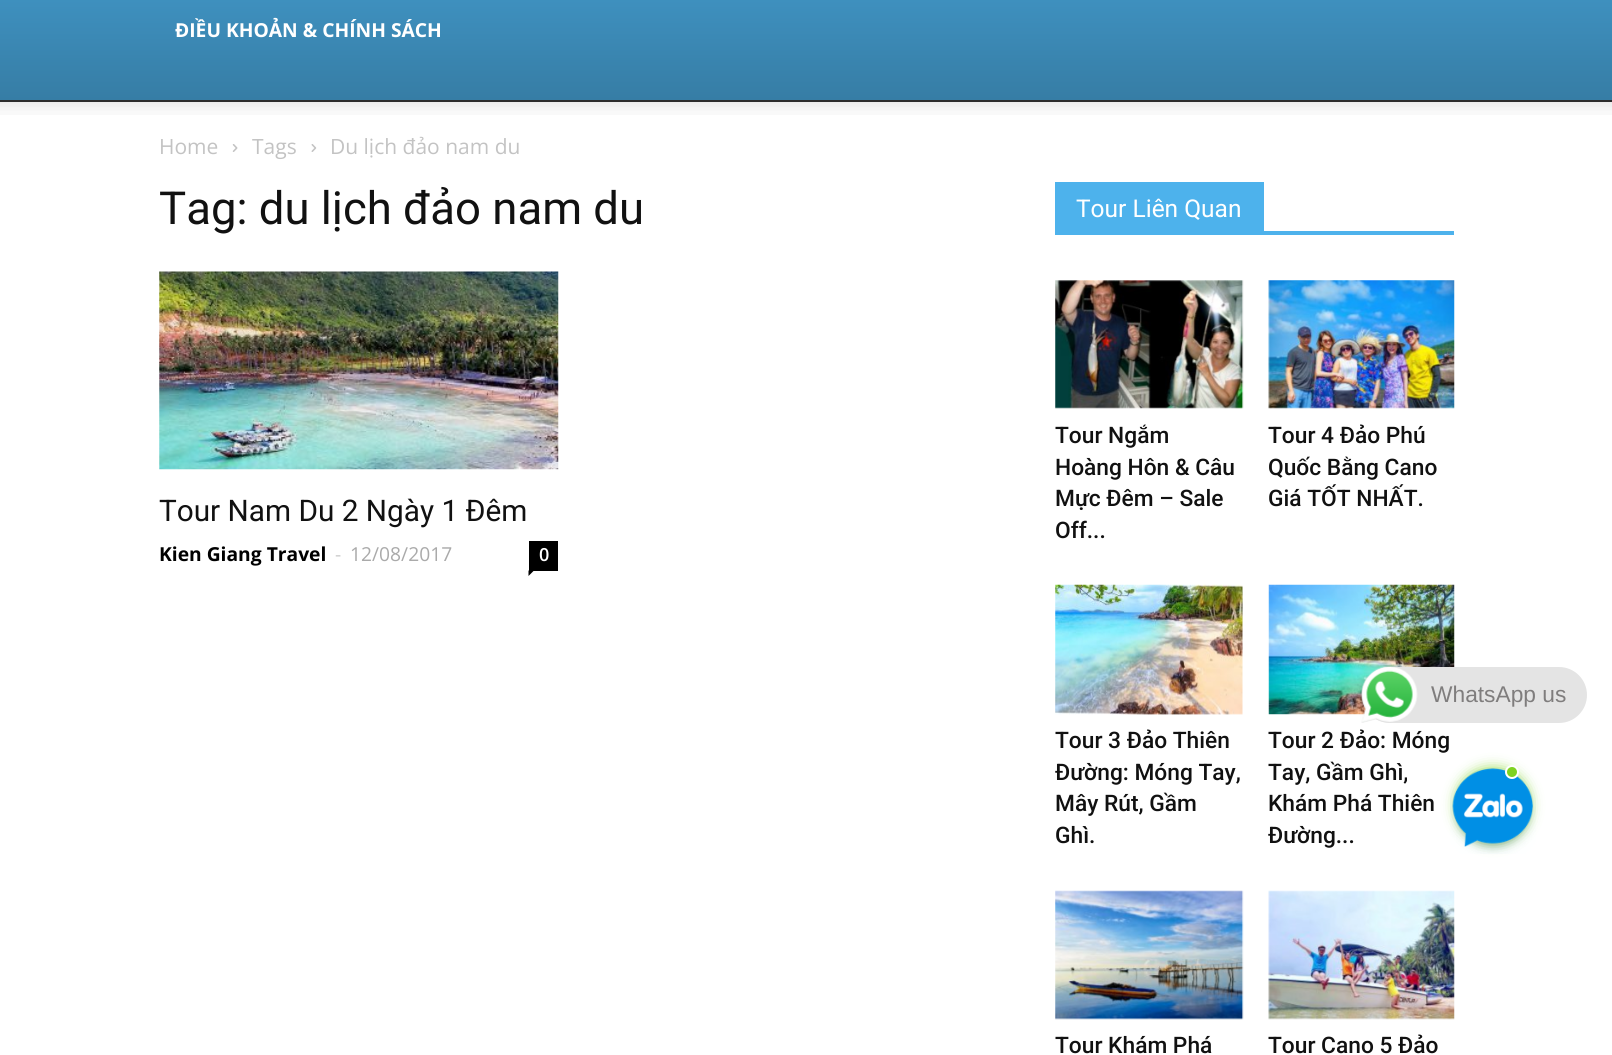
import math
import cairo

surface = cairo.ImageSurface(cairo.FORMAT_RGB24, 1612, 1055)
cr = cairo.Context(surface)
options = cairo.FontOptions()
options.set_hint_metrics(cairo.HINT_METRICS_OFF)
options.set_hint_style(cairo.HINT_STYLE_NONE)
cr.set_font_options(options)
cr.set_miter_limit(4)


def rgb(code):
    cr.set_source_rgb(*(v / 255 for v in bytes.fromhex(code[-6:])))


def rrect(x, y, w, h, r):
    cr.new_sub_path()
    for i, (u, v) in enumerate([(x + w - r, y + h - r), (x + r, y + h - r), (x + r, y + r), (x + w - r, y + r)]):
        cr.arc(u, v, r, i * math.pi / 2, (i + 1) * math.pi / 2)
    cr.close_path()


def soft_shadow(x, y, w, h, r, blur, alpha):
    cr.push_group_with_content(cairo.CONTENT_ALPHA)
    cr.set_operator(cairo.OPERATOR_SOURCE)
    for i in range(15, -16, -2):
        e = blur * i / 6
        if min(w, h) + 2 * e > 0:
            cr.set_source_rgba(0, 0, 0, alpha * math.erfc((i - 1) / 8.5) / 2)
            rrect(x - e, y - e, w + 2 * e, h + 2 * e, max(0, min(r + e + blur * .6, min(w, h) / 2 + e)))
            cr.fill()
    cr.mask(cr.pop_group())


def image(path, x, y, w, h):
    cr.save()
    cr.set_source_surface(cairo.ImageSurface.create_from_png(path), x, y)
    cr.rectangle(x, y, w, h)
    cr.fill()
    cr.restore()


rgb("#ffffff")
cr.paint()
gradient = cairo.LinearGradient(807, -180, 807, 100)
gradient.add_color_stop_rgba(0, 0.302, 0.698, 0.925, 1)
gradient.add_color_stop_rgba(1, 0.212, 0.49, 0.647, 1)
cr.set_source(gradient)
cr.rectangle(0, 0, 1612, 100)
cr.fill()
image("img/1.png", 0, 102, 1612, 13)
rgb("#2b2b2b")
cr.rectangle(0, 100, 1612, 2)
cr.fill()
image("img/2.png", 232, 144, 6, 8)
image("img/3.png", 311, 144, 6, 8)
image("img/4.png", 159, 271, 400, 199)
rgb("#000000")
cr.rectangle(529, 541, 29, 30)
cr.fill()
cr.new_path()
cr.move_to(528.5, 570.5)
cr.line_to(534, 570.5)
cr.line_to(528.5, 576)
cr.close_path()
cr.fill()
rgb("#4db2ec")
cr.rectangle(1055, 231, 399, 4)
cr.fill()
cr.rectangle(1055, 182, 209, 49)
cr.fill()
image("img/5.png", 1055, 280, 189, 129)
image("img/6.png", 1268, 280, 187, 129)
image("img/7.png", 1055, 584, 188, 131)
image("img/8.png", 1268, 584, 187, 131)
image("img/9.png", 1055, 890, 189, 130)
image("img/10.png", 1268, 890, 187, 130)
rgb("#e4e4e4")
rrect(1362, 667, 225, 56, 28)
cr.fill()
image("img/11.png", 1361, 666, 57, 57)
rgb("#7ed321")
soft_shadow(1458, 770, 70, 70, 35, 7, 1)
image("img/12.png", 1450, 768, 86, 86)
rgb("#7ed321")
cr.arc(1512, 772, 6, 0, 2 * math.pi)
cr.fill_preserve()
rgb("#ffffff")
cr.stroke()
cr.select_font_face("Open Sans", cairo.FONT_SLANT_NORMAL, cairo.FONT_WEIGHT_BOLD)
cr.set_font_size(19.25)
cr.move_to(175, 37)
cr.show_text("ĐIỀU KHOẢN & CHÍNH SÁCH")
cr.select_font_face("Open Sans")
cr.set_font_size(21)
rgb("#c3c3c3")
for x, y, s in [
    (159, 154, "Home"),
    (252, 154, "Tags"),
    (330, 154, "Du lịch đảo nam du"),
]:
    cr.move_to(x, y)
    cr.show_text(s)
cr.select_font_face("Roboto")
cr.set_font_size(45.5)
rgb("#111111")
cr.move_to(159, 224)
cr.show_text("Tag: du lịch đảo nam du")
cr.set_font_size(29.75)
cr.move_to(159, 521)
cr.show_text("Tour Nam Du 2 Ngày 1 Đêm")
cr.select_font_face("Open Sans", cairo.FONT_SLANT_NORMAL, cairo.FONT_WEIGHT_BOLD)
cr.set_font_size(19.25)
rgb("#000000")
cr.move_to(159, 561)
cr.show_text("Kien Giang Travel")
cr.select_font_face("Open Sans")
rgb("#cccccc")
cr.move_to(335, 561)
cr.show_text("-")
rgb("#aaaaaa")
cr.move_to(350, 561)
cr.show_text("12/08/2017")
cr.select_font_face("Open Sans SemiBold")
cr.set_font_size(18)
rgb("#ffffff")
cr.move_to(539, 561)
cr.show_text("0")
cr.select_font_face("Roboto")
cr.set_font_size(24.5)
cr.move_to(1076, 217)
cr.show_text("Tour Liên Quan")
cr.select_font_face("Roboto Medium")
cr.set_font_size(22.75)
rgb("#111111")
for x, y, s in [
    (1055, 443, "Tour Ngắm"),
    (1055, 475, "Hoàng Hôn & Câu"),
    (1055, 506, "Mực Đêm – Sale"),
    (1055, 538, "Off..."),
    (1268, 443, "Tour 4 Đảo Phú"),
    (1268, 475, "Quốc Bằng Cano"),
    (1268, 506, "Giá TỐT NHẤT."),
    (1055, 748, "Tour 3 Đảo Thiên"),
    (1055, 780, "Đường: Móng Tay,"),
    (1055, 811, "Mây Rút, Gầm"),
    (1055, 843, "Ghì."),
    (1268, 748, "Tour 2 Đảo: Móng"),
    (1268, 780, "Tay, Gầm Ghì,"),
    (1268, 811, "Khám Phá Thiên"),
    (1268, 843, "Đường..."),
    (1055, 1053, "Tour Khám Phá"),
    (1268, 1053, "Tour Cano 5 Đảo"),
]:
    cr.move_to(x, y)
    cr.show_text(s)
cr.select_font_face("Liberation Sans")
rgb("#7f7d7d")
cr.move_to(1431, 702)
cr.show_text("WhatsApp us")
surface.write_to_png("page.png")
